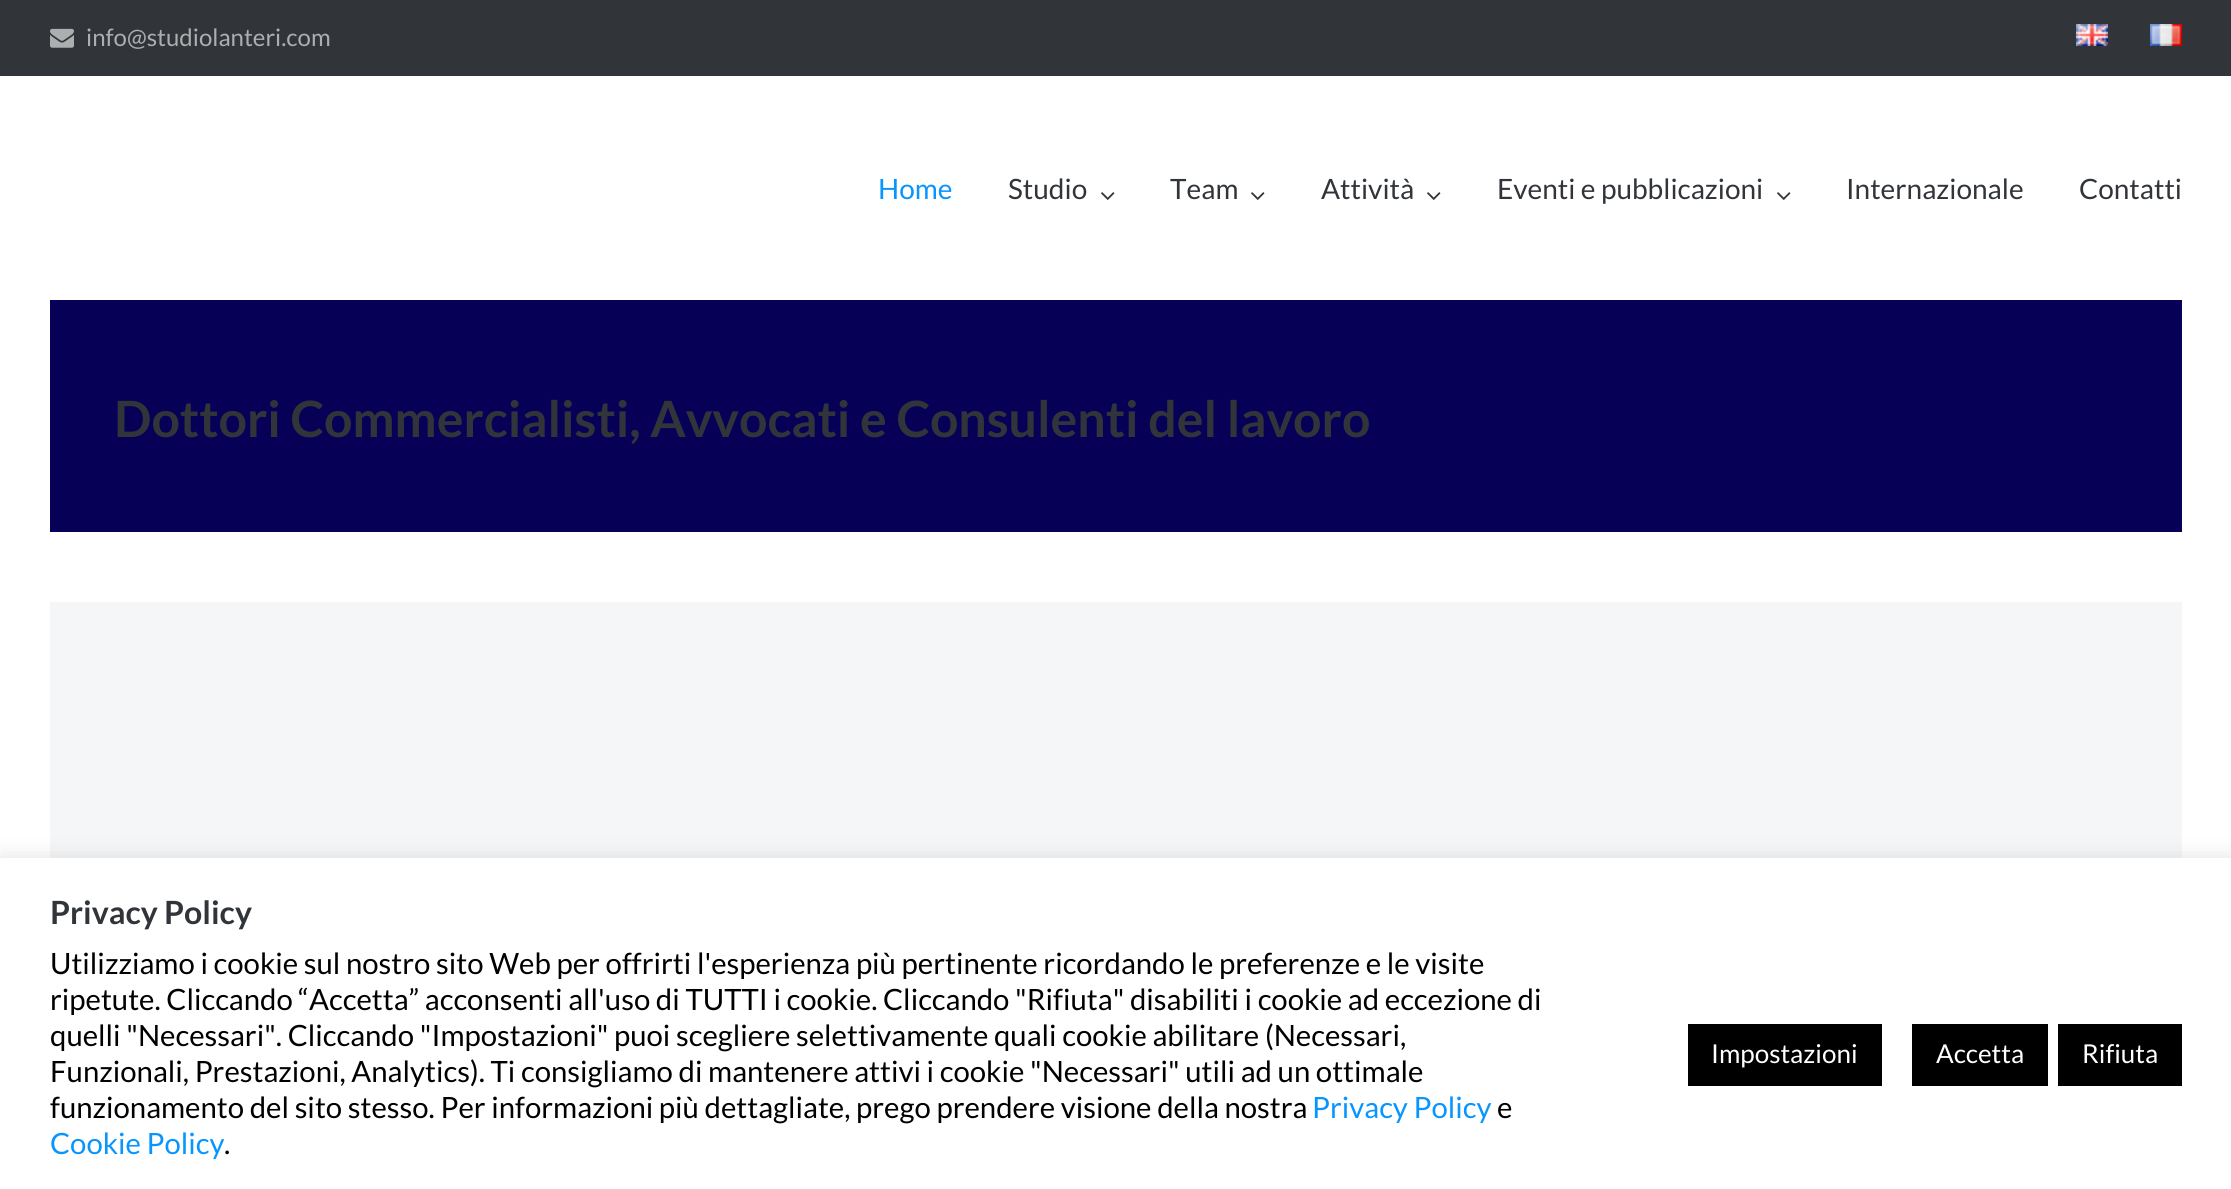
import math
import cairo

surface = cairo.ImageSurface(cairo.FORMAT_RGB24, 2231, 1189)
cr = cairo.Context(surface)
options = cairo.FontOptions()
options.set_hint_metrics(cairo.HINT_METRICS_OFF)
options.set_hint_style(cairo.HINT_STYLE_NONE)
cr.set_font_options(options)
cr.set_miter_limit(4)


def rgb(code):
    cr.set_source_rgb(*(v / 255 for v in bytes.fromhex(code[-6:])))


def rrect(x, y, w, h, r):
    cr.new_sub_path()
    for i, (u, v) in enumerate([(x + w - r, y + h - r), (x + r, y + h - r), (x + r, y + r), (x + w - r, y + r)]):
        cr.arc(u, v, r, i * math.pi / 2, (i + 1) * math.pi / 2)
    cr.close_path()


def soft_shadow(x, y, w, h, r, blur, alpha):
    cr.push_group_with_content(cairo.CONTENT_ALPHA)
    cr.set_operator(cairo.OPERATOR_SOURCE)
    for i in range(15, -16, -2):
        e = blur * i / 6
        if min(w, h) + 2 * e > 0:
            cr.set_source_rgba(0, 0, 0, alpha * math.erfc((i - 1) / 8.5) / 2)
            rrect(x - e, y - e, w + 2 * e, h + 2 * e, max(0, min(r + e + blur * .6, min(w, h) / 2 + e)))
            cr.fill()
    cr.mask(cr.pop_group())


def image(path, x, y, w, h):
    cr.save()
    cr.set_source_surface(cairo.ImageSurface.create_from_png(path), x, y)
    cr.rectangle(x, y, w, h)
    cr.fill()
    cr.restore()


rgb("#ffffff")
cr.paint()
rgb("#313539")
cr.rectangle(0, 0, 2231, 76)
cr.fill()
image("img/1.png", 50, 28, 24, 20)
image("img/2.png", 2076, 24, 32, 22)
image("img/3.png", 2150, 24, 32, 22)
image("img/4.png", 1101, 192, 14, 8)
image("img/4.png", 1251, 192, 14, 8)
image("img/4.png", 1427, 192, 14, 8)
image("img/4.png", 1777, 192, 14, 8)
rgb("#060057")
cr.rectangle(50, 300, 2132, 232)
cr.fill()
rgb("#f5f6f7")
cr.rectangle(50, 602, 2132, 256)
cr.fill()
rgb("#acabab")
soft_shadow(0, 856, 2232, 332, 0, 10, 0.3)
for x, y, w, h, color in [
    (0, 858, 2231, 331, "#ffffff"),
    (1688, 1024, 194, 62, "#000000"),
    (1912, 1024, 136, 62, "#000000"),
    (2058, 1024, 124, 62, "#000000"),
]:
    rgb(color)
    cr.rectangle(x, y, w, h)
    cr.fill()
cr.select_font_face("Lato")
cr.set_font_size(24)
rgb("#acaeaf")
cr.move_to(86, 46)
cr.show_text("info@studiolanteri.com")
cr.set_font_size(28)
rgb("#0896fe")
cr.move_to(878, 199)
cr.show_text("Home")
rgb("#313539")
for x, y, s in [
    (1008, 199, "Studio"),
    (1170, 199, "Team"),
    (1321, 199, "Attività"),
    (1497, 199, "Eventi e pubblicazioni"),
    (1846, 199, "Internazionale"),
    (2079, 199, "Contatti"),
]:
    cr.move_to(x, y)
    cr.show_text(s)
cr.select_font_face("Lato", cairo.FONT_SLANT_NORMAL, cairo.FONT_WEIGHT_BOLD)
cr.set_font_size(50)
cr.move_to(114, 437)
cr.show_text("Dottori Commercialisti, Avvocati e Consulenti del lavoro")
cr.set_font_size(32)
cr.move_to(50, 924)
cr.show_text("Privacy Policy")
cr.select_font_face("Lato")
cr.set_font_size(29.33)
rgb("#000000")
for x, y, s in [
    (50, 974, "Utilizziamo i cookie sul nostro sito Web per offrirti l'esperienza più pertinente ricordando le preferenze e le visite"),
    (50, 1010, "ripetute. Cliccando “Accetta” acconsenti all'uso di TUTTI i cookie. Cliccando \"Rifiuta\" disabiliti i cookie ad eccezione di"),
    (50, 1046, "quelli \"Necessari\". Cliccando \"Impostazioni\" puoi scegliere selettivamente quali cookie abilitare (Necessari,"),
    (50, 1082, "Funzionali, Prestazioni, Analytics). Ti consigliamo di mantenere attivi i cookie \"Necessari\" utili ad un ottimale"),
    (50, 1118, "funzionamento del sito stesso. Per informazioni più dettagliate, prego prendere visione della nostra"),
]:
    cr.move_to(x, y)
    cr.show_text(s)
rgb("#0896fe")
cr.move_to(1312, 1118)
cr.show_text("Privacy Policy")
rgb("#000000")
cr.move_to(1497, 1118)
cr.show_text("e")
rgb("#0896fe")
cr.move_to(50, 1154)
cr.show_text("Cookie Policy")
rgb("#000000")
cr.move_to(224, 1154)
cr.show_text(".")
cr.set_font_size(26)
rgb("#ffffff")
for x, y, s in [
    (1711, 1063, "Impostazioni"),
    (1936, 1063, "Accetta"),
    (2082, 1063, "Rifiuta"),
]:
    cr.move_to(x, y)
    cr.show_text(s)
surface.write_to_png("page.png")
